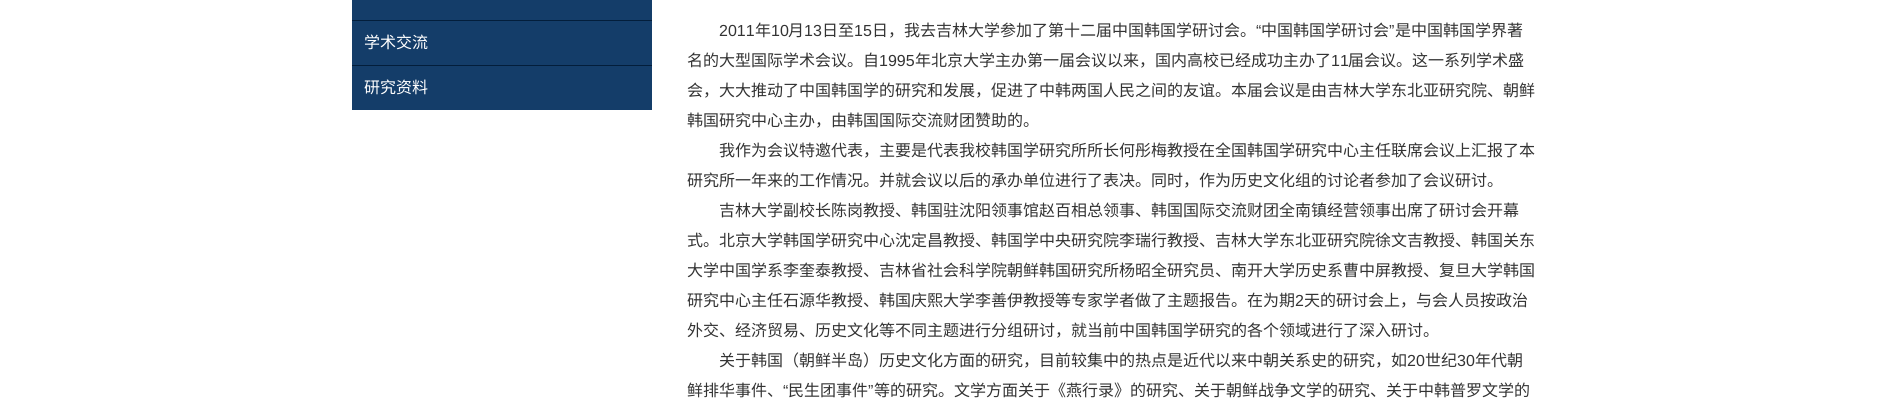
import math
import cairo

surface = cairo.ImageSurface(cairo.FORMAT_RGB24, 1904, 403)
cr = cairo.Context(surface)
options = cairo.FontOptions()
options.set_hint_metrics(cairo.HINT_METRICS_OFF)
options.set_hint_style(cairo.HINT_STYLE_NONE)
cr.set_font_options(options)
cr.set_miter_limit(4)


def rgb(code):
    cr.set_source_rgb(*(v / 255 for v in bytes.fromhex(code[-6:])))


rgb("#ffffff")
cr.paint()
for x, y, w, h, color in [
    (352, 0, 300, 20, "#143d69"),
    (352, 20, 300, 1, "#031e3b"),
    (352, 21, 300, 44, "#143d69"),
    (352, 65, 300, 1, "#031e3b"),
    (352, 66, 300, 44, "#143d69"),
]:
    rgb(color)
    cr.rectangle(x, y, w, h)
    cr.fill()
cr.select_font_face("Noto Sans CJK SC")
cr.set_font_size(16)
rgb("#ffffff")
cr.move_to(364, 48)
cr.show_text("学术交流")
cr.move_to(364, 93)
cr.show_text("研究资料")
cr.select_font_face("Liberation Sans")
rgb("#333333")
cr.move_to(719, 36)
cr.show_text("2011")
cr.select_font_face("Noto Sans CJK SC")
cr.move_to(755, 36)
cr.show_text("年")
cr.select_font_face("Liberation Sans")
cr.move_to(771, 36)
cr.show_text("10")
cr.select_font_face("Noto Sans CJK SC")
cr.move_to(788, 36)
cr.show_text("月")
cr.select_font_face("Liberation Sans")
cr.move_to(804, 36)
cr.show_text("13")
cr.select_font_face("Noto Sans CJK SC")
cr.move_to(822, 36)
cr.show_text("日至")
cr.select_font_face("Liberation Sans")
cr.move_to(854, 36)
cr.show_text("15")
cr.select_font_face("Noto Sans CJK SC")
cr.move_to(872, 36)
cr.show_text("日，我去吉林大学参加了第十二届中国韩国学研讨会。")
cr.select_font_face("Liberation Sans")
cr.move_to(1256, 36)
cr.show_text("“")
cr.select_font_face("Noto Sans CJK SC")
cr.move_to(1261, 36)
cr.show_text("中国韩国学研讨会")
cr.select_font_face("Liberation Sans")
cr.move_to(1389, 36)
cr.show_text("”")
cr.select_font_face("Noto Sans CJK SC")
cr.move_to(1395, 36)
cr.show_text("是中国韩国学界著")
cr.move_to(687, 66)
cr.show_text("名的大型国际学术会议。自")
cr.select_font_face("Liberation Sans")
cr.move_to(879, 66)
cr.show_text("1995")
cr.select_font_face("Noto Sans CJK SC")
cr.move_to(915, 66)
cr.show_text("年北京大学主办第一届会议以来，国内高校已经成功主办了")
cr.select_font_face("Liberation Sans")
cr.move_to(1331, 66)
cr.show_text("11")
cr.select_font_face("Noto Sans CJK SC")
for x, y, s in [
    (1348, 66, "届会议。这一系列学术盛"),
    (687, 96, "会，大大推动了中国韩国学的研究和发展，促进了中韩两国人民之间的友谊。本届会议是由吉林大学东北亚研究院、朝鲜"),
    (687, 126, "韩国研究中心主办，由韩国国际交流财团赞助的。"),
    (719, 156, "我作为会议特邀代表，主要是代表我校韩国学研究所所长何彤梅教授在全国韩国学研究中心主任联席会议上汇报了本"),
    (687, 186, "研究所一年来的工作情况。并就会议以后的承办单位进行了表决。同时，作为历史文化组的讨论者参加了会议研讨。"),
    (719, 216, "吉林大学副校长陈岗教授、韩国驻沈阳领事馆赵百相总领事、韩国国际交流财团全南镇经营领事出席了研讨会开幕"),
    (687, 246, "式。北京大学韩国学研究中心沈定昌教授、韩国学中央研究院李瑞行教授、吉林大学东北亚研究院徐文吉教授、韩国关东"),
    (687, 276, "大学中国学系李奎泰教授、吉林省社会科学院朝鲜韩国研究所杨昭全研究员、南开大学历史系曹中屏教授、复旦大学韩国"),
    (687, 306, "研究中心主任石源华教授、韩国庆熙大学李善伊教授等专家学者做了主题报告。在为期"),
]:
    cr.move_to(x, y)
    cr.show_text(s)
cr.select_font_face("Liberation Sans")
cr.move_to(1295, 306)
cr.show_text("2")
cr.select_font_face("Noto Sans CJK SC")
for x, y, s in [
    (1304, 306, "天的研讨会上，与会人员按政治"),
    (687, 336, "外交、经济贸易、历史文化等不同主题进行分组研讨，就当前中国韩国学研究的各个领域进行了深入研讨。"),
    (719, 366, "关于韩国（朝鲜半岛）历史文化方面的研究，目前较集中的热点是近代以来中朝关系史的研究，如"),
]:
    cr.move_to(x, y)
    cr.show_text(s)
cr.select_font_face("Liberation Sans")
cr.move_to(1407, 366)
cr.show_text("20")
cr.select_font_face("Noto Sans CJK SC")
cr.move_to(1425, 366)
cr.show_text("世纪")
cr.select_font_face("Liberation Sans")
cr.move_to(1457, 366)
cr.show_text("30")
cr.select_font_face("Noto Sans CJK SC")
cr.move_to(1475, 366)
cr.show_text("年代朝")
cr.move_to(687, 396)
cr.show_text("鲜排华事件、")
cr.select_font_face("Liberation Sans")
cr.move_to(783, 396)
cr.show_text("“")
cr.select_font_face("Noto Sans CJK SC")
cr.move_to(788, 396)
cr.show_text("民生团事件")
cr.select_font_face("Liberation Sans")
cr.move_to(868, 396)
cr.show_text("”")
cr.select_font_face("Noto Sans CJK SC")
cr.move_to(874, 396)
cr.show_text("等的研究。文学方面关于《燕行录》的研究、关于朝鲜战争文学的研究、关于中韩普罗文学的")
surface.write_to_png("page.png")
